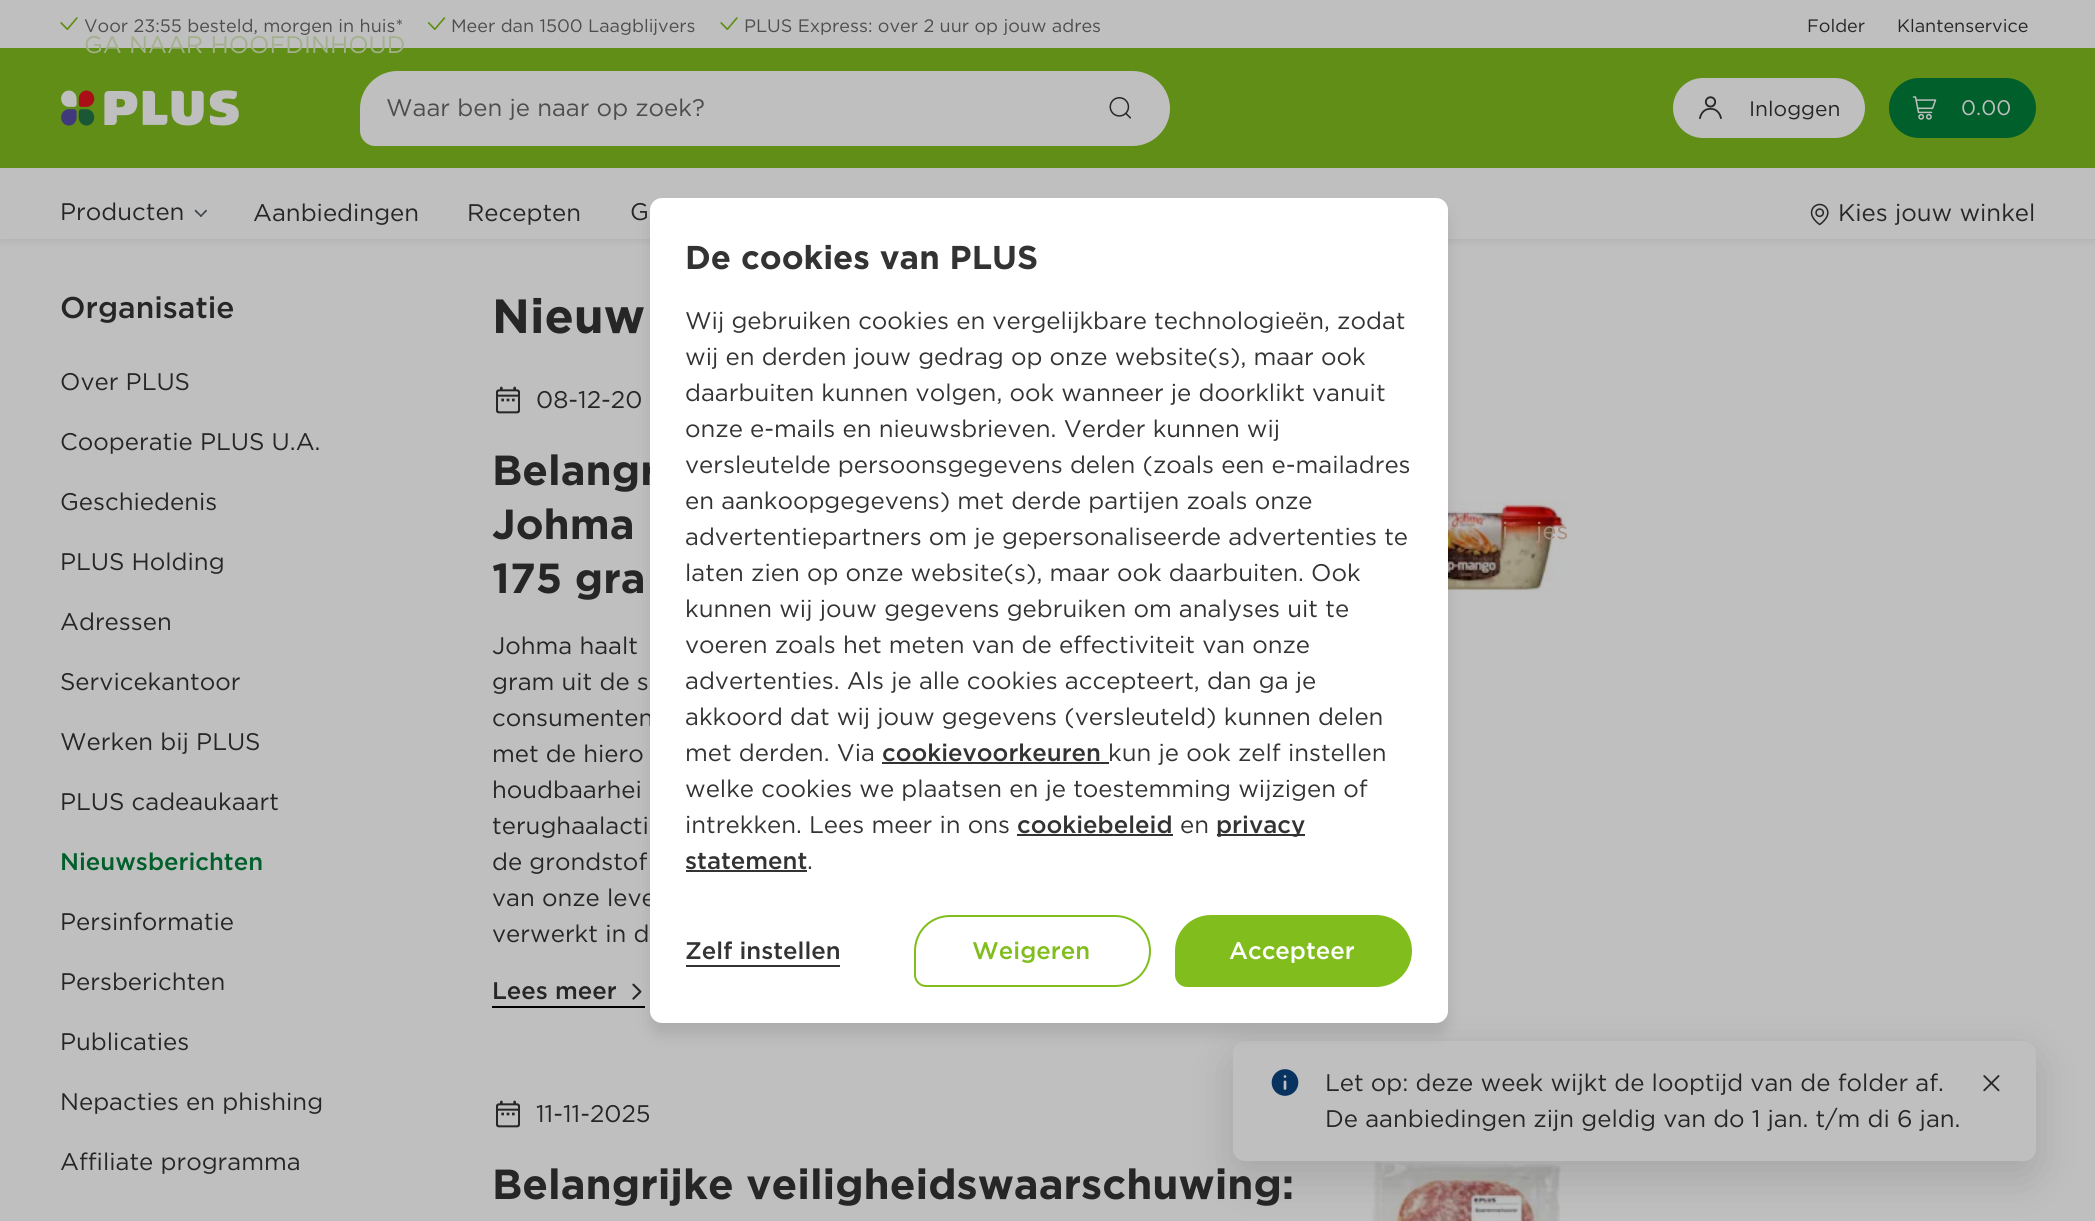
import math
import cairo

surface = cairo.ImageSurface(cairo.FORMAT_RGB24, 2095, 1221)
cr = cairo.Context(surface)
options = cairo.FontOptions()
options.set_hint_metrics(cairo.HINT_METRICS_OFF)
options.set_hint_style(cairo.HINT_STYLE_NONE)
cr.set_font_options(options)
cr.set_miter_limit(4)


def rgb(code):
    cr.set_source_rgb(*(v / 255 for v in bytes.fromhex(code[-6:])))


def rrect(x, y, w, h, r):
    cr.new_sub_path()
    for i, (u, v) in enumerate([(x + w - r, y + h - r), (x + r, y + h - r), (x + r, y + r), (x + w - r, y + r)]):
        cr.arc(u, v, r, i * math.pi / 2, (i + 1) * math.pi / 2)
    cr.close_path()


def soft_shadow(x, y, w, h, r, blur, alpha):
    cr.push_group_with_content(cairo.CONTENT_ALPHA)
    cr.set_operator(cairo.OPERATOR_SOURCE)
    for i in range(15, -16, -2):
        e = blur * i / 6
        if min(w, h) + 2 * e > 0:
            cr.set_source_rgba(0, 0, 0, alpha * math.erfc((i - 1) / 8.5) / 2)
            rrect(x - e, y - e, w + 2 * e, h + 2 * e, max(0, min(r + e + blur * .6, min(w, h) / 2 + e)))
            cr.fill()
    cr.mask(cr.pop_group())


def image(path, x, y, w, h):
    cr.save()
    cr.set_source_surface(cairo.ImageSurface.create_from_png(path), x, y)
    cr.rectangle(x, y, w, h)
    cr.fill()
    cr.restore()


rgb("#bfbfbf")
cr.paint()
rgb("#101214")
soft_shadow(0, 2, 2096, 238, 0, 4, 0.1)
rgb("#bfbfbf")
cr.rectangle(0, 0, 2095, 239)
cr.fill()
image("img/1.png", 60, 17, 18, 13)
image("img/2.png", 427, 17, 19, 13)
image("img/1.png", 720, 17, 18, 13)
rgb("#608e16")
cr.rectangle(0, 48, 2095, 120)
cr.fill()
image("img/3.png", 61, 90, 178, 36)
rgb("#bfbfbf")
cr.new_path()
cr.move_to(397.5, 72)
cr.line_to(1132.5, 72)
cr.curve_to(1152.5, 72, 1169, 88.5, 1169, 108.5)
cr.curve_to(1169, 128.5, 1152.5, 145, 1132.5, 145)
cr.line_to(375, 145)
cr.curve_to(367.5, 145, 361, 138.5, 361, 131)
cr.line_to(361, 108.5)
cr.curve_to(361, 88.5, 377.5, 72, 397.5, 72)
cr.close_path()
cr.fill_preserve()
cr.stroke()
image("img/4.png", 1109, 97, 22, 22)
rrect(1673, 78, 192, 60, 30)
cr.fill()
image("img/5.png", 1699, 96, 23, 24)
rgb("#005f2a")
rrect(1889, 78, 147, 60, 30)
cr.fill()
image("img/6.png", 1912, 96, 25, 24)
rgb("#3b4147")
cr.new_path()
cr.move_to(200, 216)
cr.line_to(206, 209.5)
cr.line_to(207, 211)
cr.line_to(201, 217)
cr.close_path()
cr.fill()
cr.new_path()
cr.move_to(194.5, 211)
cr.line_to(195.5, 209.5)
cr.line_to(202, 216)
cr.line_to(201, 217)
cr.close_path()
cr.fill()
image("img/7.png", 1810, 203, 19, 23)
image("img/8.png", 496, 386, 24, 28)
rgb("#000000")
cr.rectangle(492, 1006, 153, 2)
cr.fill()
image("img/9.png", 632, 983, 10, 17)
image("img/10.png", 1448, 501, 118, 91)
image("img/8.png", 496, 1100, 24, 28)
image("img/11.png", 1372, 1161, 189, 60)
rgb("#000000")
soft_shadow(1233, 1056, 803, 120, 12, 22.5, 0.14)
rgb("#bfbfbf")
rrect(1233, 1041, 803, 120, 12)
cr.fill()
image("img/12.png", 1271, 1069, 28, 27)
image("img/13.png", 1983, 1075, 17, 17)
rgb("#000000")
soft_shadow(650, 210, 798, 825, 12, 7.5, 0.1)
cr.select_font_face("Gotham")
cr.set_font_size(18)
rgb("#4d4d4d")
for x, y, s in [
    (84, 32, "Voor 23:55 besteld, morgen in huis*"),
    (451, 32, "Meer dan 1500 Laagblijvers"),
    (744, 32, "PLUS Express: over 2 uur op jouw adres"),
]:
    cr.move_to(x, y)
    cr.show_text(s)
rgb("#262626")
cr.move_to(1807, 32)
cr.show_text("Folder")
cr.move_to(1897, 32)
cr.show_text("Klantenservice")
cr.set_font_size(24)
rgb("#4d4d4d")
cr.move_to(386, 116)
cr.show_text("Waar ben je naar op zoek?")
cr.set_font_size(21)
rgb("#262626")
cr.move_to(1749, 116)
cr.show_text("Inloggen")
rgb("#bfbfbf")
cr.move_to(1961, 115)
cr.show_text("0.00")
cr.set_font_size(24)
rgb("#262626")
for x, y, s in [
    (60, 220, "Producten"),
    (253, 221, "Aanbiedingen"),
    (467, 221, "Recepten"),
    (630, 220, "G"),
]:
    cr.move_to(x, y)
    cr.show_text(s)
rgb("#a98c7b")
cr.move_to(1502, 539)
cr.show_text("i")
cr.move_to(1536, 539)
cr.show_text("jes")
rgb("#262626")
cr.move_to(1838, 221)
cr.show_text("Kies jouw winkel")
cr.select_font_face("Gotham Medium")
cr.set_font_size(30)
cr.move_to(60, 318)
cr.show_text("Organisatie")
cr.select_font_face("Gotham")
cr.set_font_size(24)
for x, y, s in [
    (60, 390, "Over PLUS"),
    (60, 450, "Cooperatie PLUS U.A."),
    (60, 510, "Geschiedenis"),
    (60, 570, "PLUS Holding"),
    (60, 630, "Adressen"),
    (60, 690, "Servicekantoor"),
    (60, 750, "Werken bij PLUS"),
    (60, 810, "PLUS cadeaukaart"),
]:
    cr.move_to(x, y)
    cr.show_text(s)
cr.select_font_face("Gotham Medium")
rgb("#005f2a")
cr.move_to(60, 870)
cr.show_text("Nieuwsberichten")
cr.select_font_face("Gotham")
rgb("#262626")
for x, y, s in [
    (60, 930, "Persinformatie"),
    (60, 990, "Persberichten"),
    (60, 1050, "Publicaties"),
    (60, 1110, "Nepacties en phishing"),
    (60, 1170, "Affiliate programma"),
]:
    cr.move_to(x, y)
    cr.show_text(s)
cr.select_font_face("Gotham", cairo.FONT_SLANT_NORMAL, cairo.FONT_WEIGHT_BOLD)
cr.set_font_size(48)
cr.move_to(492, 333)
cr.show_text("Nieuw")
cr.select_font_face("Gotham")
cr.set_font_size(24)
cr.move_to(536, 408)
cr.show_text("08-12-20")
cr.select_font_face("Gotham", cairo.FONT_SLANT_NORMAL, cairo.FONT_WEIGHT_BOLD)
cr.set_font_size(42)
for x, y, s in [
    (492, 485, "Belangr"),
    (492, 539, "Johma"),
    (492, 593, "175 gra"),
]:
    cr.move_to(x, y)
    cr.show_text(s)
cr.select_font_face("Gotham")
cr.set_font_size(24)
for x, y, s in [
    (492, 654, "Johma haalt"),
    (492, 690, "gram uit de s"),
    (492, 726, "consumenten"),
    (492, 762, "met de hiero"),
    (492, 798, "houdbaarhei"),
    (492, 834, "terughaalacti"),
    (492, 870, "de grondstof"),
    (492, 906, "van onze leve"),
    (492, 942, "verwerkt in d"),
]:
    cr.move_to(x, y)
    cr.show_text(s)
cr.select_font_face("Gotham Medium")
cr.move_to(492, 999)
cr.show_text("Lees meer")
cr.select_font_face("Gotham")
cr.move_to(536, 1122)
cr.show_text("11-11-2025")
cr.select_font_face("Gotham", cairo.FONT_SLANT_NORMAL, cairo.FONT_WEIGHT_BOLD)
cr.set_font_size(42)
cr.move_to(492, 1199)
cr.show_text("Belangrijke veiligheidswaarschuwing:")
cr.select_font_face("Gotham")
cr.set_font_size(24)
rgb("#a2b08b")
cr.move_to(84, 53)
cr.show_text("GA NAAR HOOFDINHOUD")
rgb("#262626")
cr.move_to(1325, 1091)
cr.show_text("Let op: deze week wijkt de looptijd van de folder af.")
cr.move_to(1325, 1127)
cr.show_text("De aanbiedingen zijn geldig van do 1 jan. t/m di 6 jan.")
rgb("#ffffff")
rrect(650, 198, 798, 825, 12)
cr.fill()
cr.select_font_face("Gotham", cairo.FONT_SLANT_NORMAL, cairo.FONT_WEIGHT_BOLD)
cr.set_font_size(33)
rgb("#333333")
cr.move_to(685, 269)
cr.show_text("De cookies van PLUS")
cr.select_font_face("Gotham")
cr.set_font_size(24)
for x, y, s in [
    (685, 329, "Wij gebruiken cookies en vergelijkbare technologieën, zodat"),
    (685, 365, "wij en derden jouw gedrag op onze website(s), maar ook"),
    (685, 401, "daarbuiten kunnen volgen, ook wanneer je doorklikt vanuit"),
    (685, 437, "onze e-mails en nieuwsbrieven. Verder kunnen wij"),
    (685, 473, "versleutelde persoonsgegevens delen (zoals een e-mailadres"),
    (685, 509, "en aankoopgegevens) met derde partijen zoals onze"),
    (685, 545, "advertentiepartners om je gepersonaliseerde advertenties te"),
    (685, 581, "laten zien op onze website(s), maar ook daarbuiten. Ook"),
    (685, 617, "kunnen wij jouw gegevens gebruiken om analyses uit te"),
    (685, 653, "voeren zoals het meten van de effectiviteit van onze"),
    (685, 689, "advertenties. Als je alle cookies accepteert, dan ga je"),
    (685, 725, "akkoord dat wij jouw gegevens (versleuteld) kunnen delen"),
    (685, 761, "met derden. Via"),
]:
    cr.move_to(x, y)
    cr.show_text(s)
cr.select_font_face("Gotham Medium")
cr.move_to(882, 761)
cr.show_text("cookievoorkeuren")
cr.rectangle(882, 762, 227, 2)
cr.fill()
cr.select_font_face("Gotham")
for x, y, s in [
    (1108, 761, "kun je ook zelf instellen"),
    (685, 797, "welke cookies we plaatsen en je toestemming wijzigen of"),
    (685, 833, "intrekken. Lees meer in ons"),
]:
    cr.move_to(x, y)
    cr.show_text(s)
cr.select_font_face("Gotham Medium")
cr.move_to(1017, 833)
cr.show_text("cookiebeleid")
cr.rectangle(1017, 834, 156, 2)
cr.fill()
cr.select_font_face("Gotham")
cr.move_to(1180, 833)
cr.show_text("en")
cr.rectangle(1217, 834, 88, 2)
cr.fill()
cr.select_font_face("Gotham Medium")
cr.move_to(1216, 833)
cr.show_text("privacy")
cr.move_to(685, 869)
cr.show_text("statement")
cr.rectangle(686, 870, 121, 2)
cr.fill()
cr.select_font_face("Gotham")
cr.move_to(807, 869)
cr.show_text(".")
cr.select_font_face("Gotham Medium")
cr.move_to(685, 959)
cr.show_text("Zelf instellen")
cr.rectangle(686, 965, 154, 2)
cr.fill()
cr.new_path()
cr.move_to(950, 916)
cr.line_to(1115, 916)
cr.curve_to(1134.5, 916, 1150, 931.5, 1150, 951)
cr.curve_to(1150, 970.5, 1134.5, 986, 1115, 986)
cr.line_to(926, 986)
cr.curve_to(920, 986, 915, 981, 915, 975)
cr.line_to(915, 951)
cr.curve_to(915, 931.5, 930.5, 916, 950, 916)
cr.close_path()
rgb("#80bd1d")
cr.stroke()
cr.move_to(972, 959)
cr.show_text("Weigeren")
cr.new_path()
cr.move_to(1211, 916)
cr.line_to(1376, 916)
cr.curve_to(1395.5, 916, 1411, 931.5, 1411, 951)
cr.curve_to(1411, 970.5, 1395.5, 986, 1376, 986)
cr.line_to(1187, 986)
cr.curve_to(1181, 986, 1176, 981, 1176, 975)
cr.line_to(1176, 951)
cr.curve_to(1176, 931.5, 1191.5, 916, 1211, 916)
cr.close_path()
cr.fill_preserve()
cr.stroke()
rgb("#ffffff")
cr.move_to(1229, 959)
cr.show_text("Accepteer")
surface.write_to_png("page.png")
